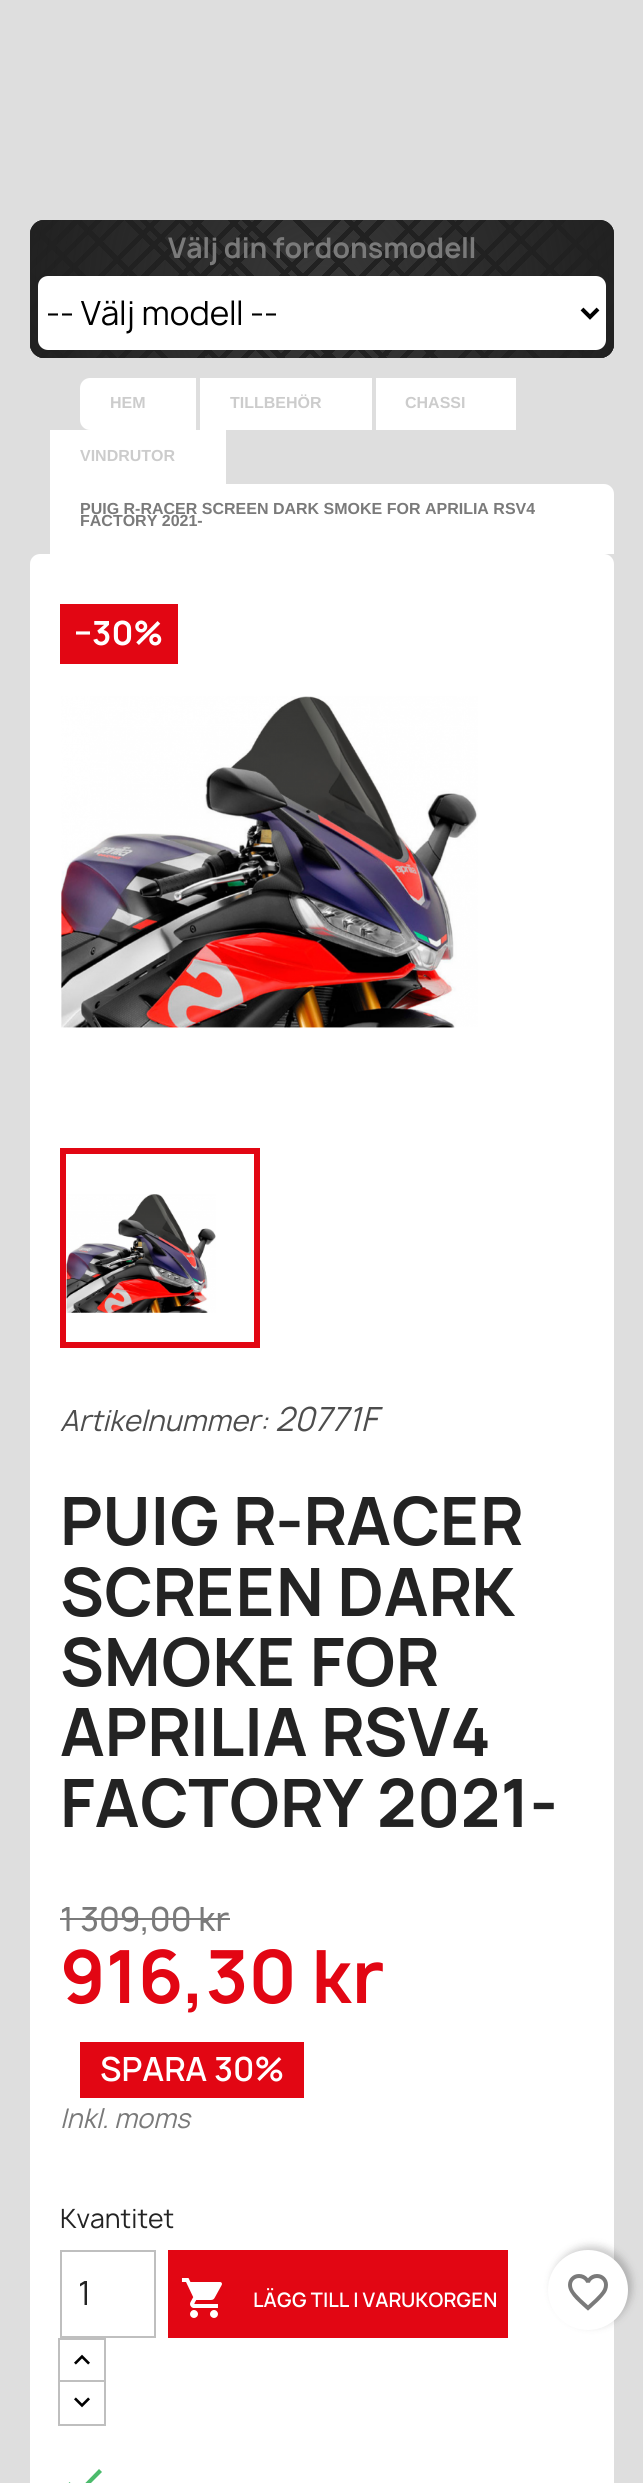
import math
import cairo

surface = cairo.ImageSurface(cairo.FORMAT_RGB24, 643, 2483)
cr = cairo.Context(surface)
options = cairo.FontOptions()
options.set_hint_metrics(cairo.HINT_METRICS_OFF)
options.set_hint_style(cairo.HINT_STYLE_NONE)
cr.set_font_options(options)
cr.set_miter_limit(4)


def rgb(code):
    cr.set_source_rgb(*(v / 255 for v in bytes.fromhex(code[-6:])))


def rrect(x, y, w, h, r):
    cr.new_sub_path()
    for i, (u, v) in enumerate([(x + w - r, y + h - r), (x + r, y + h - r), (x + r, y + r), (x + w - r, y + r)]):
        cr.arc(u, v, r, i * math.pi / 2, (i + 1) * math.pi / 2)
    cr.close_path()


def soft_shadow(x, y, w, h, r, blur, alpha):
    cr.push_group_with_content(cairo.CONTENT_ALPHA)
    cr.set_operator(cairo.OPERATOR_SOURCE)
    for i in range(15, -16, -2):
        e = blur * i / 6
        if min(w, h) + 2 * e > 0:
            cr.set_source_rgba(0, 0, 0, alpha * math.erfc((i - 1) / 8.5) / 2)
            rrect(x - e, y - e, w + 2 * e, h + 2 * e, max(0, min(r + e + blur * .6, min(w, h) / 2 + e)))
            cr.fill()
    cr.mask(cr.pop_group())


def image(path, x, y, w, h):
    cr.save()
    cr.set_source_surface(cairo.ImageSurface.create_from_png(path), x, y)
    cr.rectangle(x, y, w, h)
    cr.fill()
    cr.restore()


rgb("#dedede")
cr.paint()
rgb("#212121")
rrect(30, 220, 584, 138, 14)
cr.fill()
gradient = cairo.LinearGradient(142, 470, 506, 105)
gradient.add_color_stop_rgba(0, 0.22, 0.22, 0.22, 1)
gradient.add_color_stop_rgba(0.02, 0.22, 0.22, 0.22, 1)
gradient.add_color_stop_rgba(0.02, 0.22, 0.22, 0.22, 0)
gradient.add_color_stop_rgba(0.02, 0.22, 0.22, 0.22, 0)
gradient.add_color_stop_rgba(0.02, 0.22, 0.22, 0.22, 1)
gradient.add_color_stop_rgba(0.04, 0.22, 0.22, 0.22, 1)
gradient.add_color_stop_rgba(0.04, 0.22, 0.22, 0.22, 0)
gradient.add_color_stop_rgba(0.05, 0.22, 0.22, 0.22, 0)
gradient.add_color_stop_rgba(0.05, 0.22, 0.22, 0.22, 1)
gradient.add_color_stop_rgba(0.07, 0.22, 0.22, 0.22, 1)
gradient.add_color_stop_rgba(0.07, 0.22, 0.22, 0.22, 0)
gradient.add_color_stop_rgba(0.07, 0.22, 0.22, 0.22, 0)
gradient.add_color_stop_rgba(0.07, 0.22, 0.22, 0.22, 1)
gradient.add_color_stop_rgba(0.09, 0.22, 0.22, 0.22, 1)
gradient.add_color_stop_rgba(0.09, 0.22, 0.22, 0.22, 0)
gradient.add_color_stop_rgba(0.09, 0.22, 0.22, 0.22, 0)
gradient.add_color_stop_rgba(0.09, 0.22, 0.22, 0.22, 1)
gradient.add_color_stop_rgba(0.11, 0.22, 0.22, 0.22, 1)
gradient.add_color_stop_rgba(0.11, 0.22, 0.22, 0.22, 0)
gradient.add_color_stop_rgba(0.12, 0.22, 0.22, 0.22, 0)
gradient.add_color_stop_rgba(0.12, 0.22, 0.22, 0.22, 1)
gradient.add_color_stop_rgba(0.14, 0.22, 0.22, 0.22, 1)
gradient.add_color_stop_rgba(0.14, 0.22, 0.22, 0.22, 0)
gradient.add_color_stop_rgba(0.14, 0.22, 0.22, 0.22, 0)
gradient.add_color_stop_rgba(0.14, 0.22, 0.22, 0.22, 1)
gradient.add_color_stop_rgba(0.16, 0.22, 0.22, 0.22, 1)
gradient.add_color_stop_rgba(0.16, 0.22, 0.22, 0.22, 0)
gradient.add_color_stop_rgba(0.16, 0.22, 0.22, 0.22, 0)
gradient.add_color_stop_rgba(0.16, 0.22, 0.22, 0.22, 1)
gradient.add_color_stop_rgba(0.18, 0.22, 0.22, 0.22, 1)
gradient.add_color_stop_rgba(0.18, 0.22, 0.22, 0.22, 0)
gradient.add_color_stop_rgba(0.19, 0.22, 0.22, 0.22, 0)
gradient.add_color_stop_rgba(0.19, 0.22, 0.22, 0.22, 1)
gradient.add_color_stop_rgba(0.21, 0.22, 0.22, 0.22, 1)
gradient.add_color_stop_rgba(0.21, 0.22, 0.22, 0.22, 0)
gradient.add_color_stop_rgba(0.21, 0.22, 0.22, 0.22, 0)
gradient.add_color_stop_rgba(0.21, 0.22, 0.22, 0.22, 1)
gradient.add_color_stop_rgba(0.23, 0.22, 0.22, 0.22, 1)
gradient.add_color_stop_rgba(0.23, 0.22, 0.22, 0.22, 0)
gradient.add_color_stop_rgba(0.23, 0.22, 0.22, 0.22, 0)
gradient.add_color_stop_rgba(0.23, 0.22, 0.22, 0.22, 1)
gradient.add_color_stop_rgba(0.25, 0.22, 0.22, 0.22, 1)
gradient.add_color_stop_rgba(0.25, 0.22, 0.22, 0.22, 0)
gradient.add_color_stop_rgba(0.26, 0.22, 0.22, 0.22, 0)
gradient.add_color_stop_rgba(0.26, 0.22, 0.22, 0.22, 1)
gradient.add_color_stop_rgba(0.28, 0.22, 0.22, 0.22, 1)
gradient.add_color_stop_rgba(0.28, 0.22, 0.22, 0.22, 0)
gradient.add_color_stop_rgba(0.28, 0.22, 0.22, 0.22, 0)
gradient.add_color_stop_rgba(0.28, 0.22, 0.22, 0.22, 1)
gradient.add_color_stop_rgba(0.3, 0.22, 0.22, 0.22, 1)
gradient.add_color_stop_rgba(0.3, 0.22, 0.22, 0.22, 0)
gradient.add_color_stop_rgba(0.3, 0.22, 0.22, 0.22, 0)
gradient.add_color_stop_rgba(0.3, 0.22, 0.22, 0.22, 1)
gradient.add_color_stop_rgba(0.32, 0.22, 0.22, 0.22, 1)
gradient.add_color_stop_rgba(0.32, 0.22, 0.22, 0.22, 0)
gradient.add_color_stop_rgba(0.33, 0.22, 0.22, 0.22, 0)
gradient.add_color_stop_rgba(0.33, 0.22, 0.22, 0.22, 1)
gradient.add_color_stop_rgba(0.34, 0.22, 0.22, 0.22, 1)
gradient.add_color_stop_rgba(0.34, 0.22, 0.22, 0.22, 0)
gradient.add_color_stop_rgba(0.35, 0.22, 0.22, 0.22, 0)
gradient.add_color_stop_rgba(0.35, 0.22, 0.22, 0.22, 1)
gradient.add_color_stop_rgba(0.37, 0.22, 0.22, 0.22, 1)
gradient.add_color_stop_rgba(0.37, 0.22, 0.22, 0.22, 0)
gradient.add_color_stop_rgba(0.37, 0.22, 0.22, 0.22, 0)
gradient.add_color_stop_rgba(0.37, 0.22, 0.22, 0.22, 1)
gradient.add_color_stop_rgba(0.39, 0.22, 0.22, 0.22, 1)
gradient.add_color_stop_rgba(0.39, 0.22, 0.22, 0.22, 0)
gradient.add_color_stop_rgba(0.4, 0.22, 0.22, 0.22, 0)
gradient.add_color_stop_rgba(0.4, 0.22, 0.22, 0.22, 1)
gradient.add_color_stop_rgba(0.41, 0.22, 0.22, 0.22, 1)
gradient.add_color_stop_rgba(0.41, 0.22, 0.22, 0.22, 0)
gradient.add_color_stop_rgba(0.42, 0.22, 0.22, 0.22, 0)
gradient.add_color_stop_rgba(0.42, 0.22, 0.22, 0.22, 1)
gradient.add_color_stop_rgba(0.44, 0.22, 0.22, 0.22, 1)
gradient.add_color_stop_rgba(0.44, 0.22, 0.22, 0.22, 0)
gradient.add_color_stop_rgba(0.44, 0.22, 0.22, 0.22, 0)
gradient.add_color_stop_rgba(0.44, 0.22, 0.22, 0.22, 1)
gradient.add_color_stop_rgba(0.46, 0.22, 0.22, 0.22, 1)
gradient.add_color_stop_rgba(0.46, 0.22, 0.22, 0.22, 0)
gradient.add_color_stop_rgba(0.47, 0.22, 0.22, 0.22, 0)
gradient.add_color_stop_rgba(0.47, 0.22, 0.22, 0.22, 1)
gradient.add_color_stop_rgba(0.48, 0.22, 0.22, 0.22, 1)
gradient.add_color_stop_rgba(0.48, 0.22, 0.22, 0.22, 0)
gradient.add_color_stop_rgba(0.49, 0.22, 0.22, 0.22, 0)
gradient.add_color_stop_rgba(0.49, 0.22, 0.22, 0.22, 1)
gradient.add_color_stop_rgba(0.51, 0.22, 0.22, 0.22, 1)
gradient.add_color_stop_rgba(0.51, 0.22, 0.22, 0.22, 0)
gradient.add_color_stop_rgba(0.51, 0.22, 0.22, 0.22, 0)
gradient.add_color_stop_rgba(0.51, 0.22, 0.22, 0.22, 1)
gradient.add_color_stop_rgba(0.53, 0.22, 0.22, 0.22, 1)
gradient.add_color_stop_rgba(0.53, 0.22, 0.22, 0.22, 0)
gradient.add_color_stop_rgba(0.53, 0.22, 0.22, 0.22, 0)
gradient.add_color_stop_rgba(0.53, 0.22, 0.22, 0.22, 1)
gradient.add_color_stop_rgba(0.55, 0.22, 0.22, 0.22, 1)
gradient.add_color_stop_rgba(0.55, 0.22, 0.22, 0.22, 0)
gradient.add_color_stop_rgba(0.56, 0.22, 0.22, 0.22, 0)
gradient.add_color_stop_rgba(0.56, 0.22, 0.22, 0.22, 1)
gradient.add_color_stop_rgba(0.58, 0.22, 0.22, 0.22, 1)
gradient.add_color_stop_rgba(0.58, 0.22, 0.22, 0.22, 0)
gradient.add_color_stop_rgba(0.58, 0.22, 0.22, 0.22, 0)
gradient.add_color_stop_rgba(0.58, 0.22, 0.22, 0.22, 1)
gradient.add_color_stop_rgba(0.6, 0.22, 0.22, 0.22, 1)
gradient.add_color_stop_rgba(0.6, 0.22, 0.22, 0.22, 0)
gradient.add_color_stop_rgba(0.6, 0.22, 0.22, 0.22, 0)
gradient.add_color_stop_rgba(0.6, 0.22, 0.22, 0.22, 1)
gradient.add_color_stop_rgba(0.62, 0.22, 0.22, 0.22, 1)
gradient.add_color_stop_rgba(0.62, 0.22, 0.22, 0.22, 0)
gradient.add_color_stop_rgba(0.63, 0.22, 0.22, 0.22, 0)
gradient.add_color_stop_rgba(0.63, 0.22, 0.22, 0.22, 1)
gradient.add_color_stop_rgba(0.65, 0.22, 0.22, 0.22, 1)
gradient.add_color_stop_rgba(0.65, 0.22, 0.22, 0.22, 0)
gradient.add_color_stop_rgba(0.65, 0.22, 0.22, 0.22, 0)
gradient.add_color_stop_rgba(0.65, 0.22, 0.22, 0.22, 1)
gradient.add_color_stop_rgba(0.67, 0.22, 0.22, 0.22, 1)
gradient.add_color_stop_rgba(0.67, 0.22, 0.22, 0.22, 0)
gradient.add_color_stop_rgba(0.67, 0.22, 0.22, 0.22, 0)
gradient.add_color_stop_rgba(0.67, 0.22, 0.22, 0.22, 1)
gradient.add_color_stop_rgba(0.69, 0.22, 0.22, 0.22, 1)
gradient.add_color_stop_rgba(0.69, 0.22, 0.22, 0.22, 0)
gradient.add_color_stop_rgba(0.7, 0.22, 0.22, 0.22, 0)
gradient.add_color_stop_rgba(0.7, 0.22, 0.22, 0.22, 1)
gradient.add_color_stop_rgba(0.72, 0.22, 0.22, 0.22, 1)
gradient.add_color_stop_rgba(0.72, 0.22, 0.22, 0.22, 0)
gradient.add_color_stop_rgba(0.72, 0.22, 0.22, 0.22, 0)
gradient.add_color_stop_rgba(0.72, 0.22, 0.22, 0.22, 1)
gradient.add_color_stop_rgba(0.74, 0.22, 0.22, 0.22, 1)
gradient.add_color_stop_rgba(0.74, 0.22, 0.22, 0.22, 0)
gradient.add_color_stop_rgba(0.74, 0.22, 0.22, 0.22, 0)
gradient.add_color_stop_rgba(0.74, 0.22, 0.22, 0.22, 1)
gradient.add_color_stop_rgba(0.76, 0.22, 0.22, 0.22, 1)
gradient.add_color_stop_rgba(0.76, 0.22, 0.22, 0.22, 0)
gradient.add_color_stop_rgba(0.77, 0.22, 0.22, 0.22, 0)
gradient.add_color_stop_rgba(0.77, 0.22, 0.22, 0.22, 1)
gradient.add_color_stop_rgba(0.79, 0.22, 0.22, 0.22, 1)
gradient.add_color_stop_rgba(0.79, 0.22, 0.22, 0.22, 0)
gradient.add_color_stop_rgba(0.79, 0.22, 0.22, 0.22, 0)
gradient.add_color_stop_rgba(0.79, 0.22, 0.22, 0.22, 1)
gradient.add_color_stop_rgba(0.81, 0.22, 0.22, 0.22, 1)
gradient.add_color_stop_rgba(0.81, 0.22, 0.22, 0.22, 0)
gradient.add_color_stop_rgba(0.81, 0.22, 0.22, 0.22, 0)
gradient.add_color_stop_rgba(0.81, 0.22, 0.22, 0.22, 1)
gradient.add_color_stop_rgba(0.83, 0.22, 0.22, 0.22, 1)
gradient.add_color_stop_rgba(0.83, 0.22, 0.22, 0.22, 0)
gradient.add_color_stop_rgba(0.84, 0.22, 0.22, 0.22, 0)
gradient.add_color_stop_rgba(0.84, 0.22, 0.22, 0.22, 1)
gradient.add_color_stop_rgba(0.86, 0.22, 0.22, 0.22, 1)
gradient.add_color_stop_rgba(0.86, 0.22, 0.22, 0.22, 0)
gradient.add_color_stop_rgba(0.86, 0.22, 0.22, 0.22, 0)
gradient.add_color_stop_rgba(0.86, 0.22, 0.22, 0.22, 1)
gradient.add_color_stop_rgba(0.88, 0.22, 0.22, 0.22, 1)
gradient.add_color_stop_rgba(0.88, 0.22, 0.22, 0.22, 0)
gradient.add_color_stop_rgba(0.88, 0.22, 0.22, 0.22, 0)
gradient.add_color_stop_rgba(0.88, 0.22, 0.22, 0.22, 1)
gradient.add_color_stop_rgba(0.9, 0.22, 0.22, 0.22, 1)
gradient.add_color_stop_rgba(0.9, 0.22, 0.22, 0.22, 0)
gradient.add_color_stop_rgba(0.91, 0.22, 0.22, 0.22, 0)
gradient.add_color_stop_rgba(0.91, 0.22, 0.22, 0.22, 1)
gradient.add_color_stop_rgba(0.93, 0.22, 0.22, 0.22, 1)
gradient.add_color_stop_rgba(0.93, 0.22, 0.22, 0.22, 0)
gradient.add_color_stop_rgba(0.93, 0.22, 0.22, 0.22, 0)
gradient.add_color_stop_rgba(0.93, 0.22, 0.22, 0.22, 1)
gradient.add_color_stop_rgba(0.95, 0.22, 0.22, 0.22, 1)
gradient.add_color_stop_rgba(0.95, 0.22, 0.22, 0.22, 0)
gradient.add_color_stop_rgba(0.95, 0.22, 0.22, 0.22, 0)
gradient.add_color_stop_rgba(0.95, 0.22, 0.22, 0.22, 1)
gradient.add_color_stop_rgba(0.97, 0.22, 0.22, 0.22, 1)
gradient.add_color_stop_rgba(0.97, 0.22, 0.22, 0.22, 0)
gradient.add_color_stop_rgba(0.98, 0.22, 0.22, 0.22, 0)
gradient.add_color_stop_rgba(0.98, 0.22, 0.22, 0.22, 1)
gradient.add_color_stop_rgba(1, 0.22, 0.22, 0.22, 1)
gradient.add_color_stop_rgba(1, 0.22, 0.22, 0.22, 0)
gradient.add_color_stop_rgba(1, 0, 0, 0, 0)
cr.set_source(gradient)
rrect(30, 220, 584, 138, 14)
cr.fill()
gradient = cairo.LinearGradient(141, 109, 504, 471)
gradient.add_color_stop_rgba(0, 0.129, 0.129, 0.129, 1)
gradient.add_color_stop_rgba(0, 0.129, 0.129, 0.129, 1)
gradient.add_color_stop_rgba(0, 0.129, 0.129, 0.129, 0)
gradient.add_color_stop_rgba(0.02, 0.129, 0.129, 0.129, 0)
gradient.add_color_stop_rgba(0.02, 0.129, 0.129, 0.129, 1)
gradient.add_color_stop_rgba(0.02, 0.129, 0.129, 0.129, 1)
gradient.add_color_stop_rgba(0.02, 0.129, 0.129, 0.129, 0)
gradient.add_color_stop_rgba(0.03, 0.129, 0.129, 0.129, 0)
gradient.add_color_stop_rgba(0.03, 0.129, 0.129, 0.129, 1)
gradient.add_color_stop_rgba(0.04, 0.129, 0.129, 0.129, 1)
gradient.add_color_stop_rgba(0.04, 0.129, 0.129, 0.129, 0)
gradient.add_color_stop_rgba(0.05, 0.129, 0.129, 0.129, 0)
gradient.add_color_stop_rgba(0.05, 0.129, 0.129, 0.129, 1)
gradient.add_color_stop_rgba(0.05, 0.129, 0.129, 0.129, 1)
gradient.add_color_stop_rgba(0.05, 0.129, 0.129, 0.129, 0)
gradient.add_color_stop_rgba(0.06, 0.129, 0.129, 0.129, 0)
gradient.add_color_stop_rgba(0.06, 0.129, 0.129, 0.129, 1)
gradient.add_color_stop_rgba(0.07, 0.129, 0.129, 0.129, 1)
gradient.add_color_stop_rgba(0.07, 0.129, 0.129, 0.129, 0)
gradient.add_color_stop_rgba(0.08, 0.129, 0.129, 0.129, 0)
gradient.add_color_stop_rgba(0.08, 0.129, 0.129, 0.129, 1)
gradient.add_color_stop_rgba(0.08, 0.129, 0.129, 0.129, 1)
gradient.add_color_stop_rgba(0.08, 0.129, 0.129, 0.129, 0)
gradient.add_color_stop_rgba(0.09, 0.129, 0.129, 0.129, 0)
gradient.add_color_stop_rgba(0.09, 0.129, 0.129, 0.129, 1)
gradient.add_color_stop_rgba(0.1, 0.129, 0.129, 0.129, 1)
gradient.add_color_stop_rgba(0.1, 0.129, 0.129, 0.129, 0)
gradient.add_color_stop_rgba(0.11, 0.129, 0.129, 0.129, 0)
gradient.add_color_stop_rgba(0.11, 0.129, 0.129, 0.129, 1)
gradient.add_color_stop_rgba(0.11, 0.129, 0.129, 0.129, 1)
gradient.add_color_stop_rgba(0.11, 0.129, 0.129, 0.129, 0)
gradient.add_color_stop_rgba(0.12, 0.129, 0.129, 0.129, 0)
gradient.add_color_stop_rgba(0.12, 0.129, 0.129, 0.129, 1)
gradient.add_color_stop_rgba(0.13, 0.129, 0.129, 0.129, 1)
gradient.add_color_stop_rgba(0.13, 0.129, 0.129, 0.129, 0)
gradient.add_color_stop_rgba(0.14, 0.129, 0.129, 0.129, 0)
gradient.add_color_stop_rgba(0.14, 0.129, 0.129, 0.129, 1)
gradient.add_color_stop_rgba(0.14, 0.129, 0.129, 0.129, 1)
gradient.add_color_stop_rgba(0.14, 0.129, 0.129, 0.129, 0)
gradient.add_color_stop_rgba(0.16, 0.129, 0.129, 0.129, 0)
gradient.add_color_stop_rgba(0.16, 0.129, 0.129, 0.129, 1)
gradient.add_color_stop_rgba(0.16, 0.129, 0.129, 0.129, 1)
gradient.add_color_stop_rgba(0.16, 0.129, 0.129, 0.129, 0)
gradient.add_color_stop_rgba(0.17, 0.129, 0.129, 0.129, 0)
gradient.add_color_stop_rgba(0.17, 0.129, 0.129, 0.129, 1)
gradient.add_color_stop_rgba(0.18, 0.129, 0.129, 0.129, 1)
gradient.add_color_stop_rgba(0.18, 0.129, 0.129, 0.129, 0)
gradient.add_color_stop_rgba(0.19, 0.129, 0.129, 0.129, 0)
gradient.add_color_stop_rgba(0.19, 0.129, 0.129, 0.129, 1)
gradient.add_color_stop_rgba(0.19, 0.129, 0.129, 0.129, 1)
gradient.add_color_stop_rgba(0.19, 0.129, 0.129, 0.129, 0)
gradient.add_color_stop_rgba(0.2, 0.129, 0.129, 0.129, 0)
gradient.add_color_stop_rgba(0.2, 0.129, 0.129, 0.129, 1)
gradient.add_color_stop_rgba(0.21, 0.129, 0.129, 0.129, 1)
gradient.add_color_stop_rgba(0.21, 0.129, 0.129, 0.129, 0)
gradient.add_color_stop_rgba(0.22, 0.129, 0.129, 0.129, 0)
gradient.add_color_stop_rgba(0.22, 0.129, 0.129, 0.129, 1)
gradient.add_color_stop_rgba(0.22, 0.129, 0.129, 0.129, 1)
gradient.add_color_stop_rgba(0.22, 0.129, 0.129, 0.129, 0)
gradient.add_color_stop_rgba(0.23, 0.129, 0.129, 0.129, 0)
gradient.add_color_stop_rgba(0.23, 0.129, 0.129, 0.129, 1)
gradient.add_color_stop_rgba(0.24, 0.129, 0.129, 0.129, 1)
gradient.add_color_stop_rgba(0.24, 0.129, 0.129, 0.129, 0)
gradient.add_color_stop_rgba(0.25, 0.129, 0.129, 0.129, 0)
gradient.add_color_stop_rgba(0.25, 0.129, 0.129, 0.129, 1)
gradient.add_color_stop_rgba(0.25, 0.129, 0.129, 0.129, 1)
gradient.add_color_stop_rgba(0.25, 0.129, 0.129, 0.129, 0)
gradient.add_color_stop_rgba(0.27, 0.129, 0.129, 0.129, 0)
gradient.add_color_stop_rgba(0.27, 0.129, 0.129, 0.129, 1)
gradient.add_color_stop_rgba(0.27, 0.129, 0.129, 0.129, 1)
gradient.add_color_stop_rgba(0.27, 0.129, 0.129, 0.129, 0)
gradient.add_color_stop_rgba(0.28, 0.129, 0.129, 0.129, 0)
gradient.add_color_stop_rgba(0.28, 0.129, 0.129, 0.129, 1)
gradient.add_color_stop_rgba(0.29, 0.129, 0.129, 0.129, 1)
gradient.add_color_stop_rgba(0.29, 0.129, 0.129, 0.129, 0)
gradient.add_color_stop_rgba(0.3, 0.129, 0.129, 0.129, 0)
gradient.add_color_stop_rgba(0.3, 0.129, 0.129, 0.129, 1)
gradient.add_color_stop_rgba(0.3, 0.129, 0.129, 0.129, 1)
gradient.add_color_stop_rgba(0.3, 0.129, 0.129, 0.129, 0)
gradient.add_color_stop_rgba(0.31, 0.129, 0.129, 0.129, 0)
gradient.add_color_stop_rgba(0.31, 0.129, 0.129, 0.129, 1)
gradient.add_color_stop_rgba(0.32, 0.129, 0.129, 0.129, 1)
gradient.add_color_stop_rgba(0.32, 0.129, 0.129, 0.129, 0)
gradient.add_color_stop_rgba(0.33, 0.129, 0.129, 0.129, 0)
gradient.add_color_stop_rgba(0.33, 0.129, 0.129, 0.129, 1)
gradient.add_color_stop_rgba(0.33, 0.129, 0.129, 0.129, 1)
gradient.add_color_stop_rgba(0.33, 0.129, 0.129, 0.129, 0)
gradient.add_color_stop_rgba(0.34, 0.129, 0.129, 0.129, 0)
gradient.add_color_stop_rgba(0.34, 0.129, 0.129, 0.129, 1)
gradient.add_color_stop_rgba(0.35, 0.129, 0.129, 0.129, 1)
gradient.add_color_stop_rgba(0.35, 0.129, 0.129, 0.129, 0)
gradient.add_color_stop_rgba(0.36, 0.129, 0.129, 0.129, 0)
gradient.add_color_stop_rgba(0.36, 0.129, 0.129, 0.129, 1)
gradient.add_color_stop_rgba(0.36, 0.129, 0.129, 0.129, 1)
gradient.add_color_stop_rgba(0.36, 0.129, 0.129, 0.129, 0)
gradient.add_color_stop_rgba(0.38, 0.129, 0.129, 0.129, 0)
gradient.add_color_stop_rgba(0.38, 0.129, 0.129, 0.129, 1)
gradient.add_color_stop_rgba(0.38, 0.129, 0.129, 0.129, 1)
gradient.add_color_stop_rgba(0.38, 0.129, 0.129, 0.129, 0)
gradient.add_color_stop_rgba(0.39, 0.129, 0.129, 0.129, 0)
gradient.add_color_stop_rgba(0.39, 0.129, 0.129, 0.129, 1)
gradient.add_color_stop_rgba(0.39, 0.129, 0.129, 0.129, 1)
gradient.add_color_stop_rgba(0.39, 0.129, 0.129, 0.129, 0)
gradient.add_color_stop_rgba(0.41, 0.129, 0.129, 0.129, 0)
gradient.add_color_stop_rgba(0.41, 0.129, 0.129, 0.129, 1)
gradient.add_color_stop_rgba(0.41, 0.129, 0.129, 0.129, 1)
gradient.add_color_stop_rgba(0.41, 0.129, 0.129, 0.129, 0)
gradient.add_color_stop_rgba(0.42, 0.129, 0.129, 0.129, 0)
gradient.add_color_stop_rgba(0.42, 0.129, 0.129, 0.129, 1)
gradient.add_color_stop_rgba(0.43, 0.129, 0.129, 0.129, 1)
gradient.add_color_stop_rgba(0.43, 0.129, 0.129, 0.129, 0)
gradient.add_color_stop_rgba(0.44, 0.129, 0.129, 0.129, 0)
gradient.add_color_stop_rgba(0.44, 0.129, 0.129, 0.129, 1)
gradient.add_color_stop_rgba(0.44, 0.129, 0.129, 0.129, 1)
gradient.add_color_stop_rgba(0.44, 0.129, 0.129, 0.129, 0)
gradient.add_color_stop_rgba(0.45, 0.129, 0.129, 0.129, 0)
gradient.add_color_stop_rgba(0.45, 0.129, 0.129, 0.129, 1)
gradient.add_color_stop_rgba(0.46, 0.129, 0.129, 0.129, 1)
gradient.add_color_stop_rgba(0.46, 0.129, 0.129, 0.129, 0)
gradient.add_color_stop_rgba(0.47, 0.129, 0.129, 0.129, 0)
gradient.add_color_stop_rgba(0.47, 0.129, 0.129, 0.129, 1)
gradient.add_color_stop_rgba(0.47, 0.129, 0.129, 0.129, 1)
gradient.add_color_stop_rgba(0.47, 0.129, 0.129, 0.129, 0)
gradient.add_color_stop_rgba(0.48, 0.129, 0.129, 0.129, 0)
gradient.add_color_stop_rgba(0.48, 0.129, 0.129, 0.129, 1)
gradient.add_color_stop_rgba(0.49, 0.129, 0.129, 0.129, 1)
gradient.add_color_stop_rgba(0.49, 0.129, 0.129, 0.129, 0)
gradient.add_color_stop_rgba(0.5, 0.129, 0.129, 0.129, 0)
gradient.add_color_stop_rgba(0.5, 0.129, 0.129, 0.129, 1)
gradient.add_color_stop_rgba(0.5, 0.129, 0.129, 0.129, 1)
gradient.add_color_stop_rgba(0.5, 0.129, 0.129, 0.129, 0)
gradient.add_color_stop_rgba(0.52, 0.129, 0.129, 0.129, 0)
gradient.add_color_stop_rgba(0.52, 0.129, 0.129, 0.129, 1)
gradient.add_color_stop_rgba(0.52, 0.129, 0.129, 0.129, 1)
gradient.add_color_stop_rgba(0.52, 0.129, 0.129, 0.129, 0)
gradient.add_color_stop_rgba(0.53, 0.129, 0.129, 0.129, 0)
gradient.add_color_stop_rgba(0.53, 0.129, 0.129, 0.129, 1)
gradient.add_color_stop_rgba(0.54, 0.129, 0.129, 0.129, 1)
gradient.add_color_stop_rgba(0.54, 0.129, 0.129, 0.129, 0)
gradient.add_color_stop_rgba(0.55, 0.129, 0.129, 0.129, 0)
gradient.add_color_stop_rgba(0.55, 0.129, 0.129, 0.129, 1)
gradient.add_color_stop_rgba(0.55, 0.129, 0.129, 0.129, 1)
gradient.add_color_stop_rgba(0.55, 0.129, 0.129, 0.129, 0)
gradient.add_color_stop_rgba(0.56, 0.129, 0.129, 0.129, 0)
gradient.add_color_stop_rgba(0.56, 0.129, 0.129, 0.129, 1)
gradient.add_color_stop_rgba(0.57, 0.129, 0.129, 0.129, 1)
gradient.add_color_stop_rgba(0.57, 0.129, 0.129, 0.129, 0)
gradient.add_color_stop_rgba(0.58, 0.129, 0.129, 0.129, 0)
gradient.add_color_stop_rgba(0.58, 0.129, 0.129, 0.129, 1)
gradient.add_color_stop_rgba(0.58, 0.129, 0.129, 0.129, 1)
gradient.add_color_stop_rgba(0.58, 0.129, 0.129, 0.129, 0)
gradient.add_color_stop_rgba(0.59, 0.129, 0.129, 0.129, 0)
gradient.add_color_stop_rgba(0.59, 0.129, 0.129, 0.129, 1)
gradient.add_color_stop_rgba(0.6, 0.129, 0.129, 0.129, 1)
gradient.add_color_stop_rgba(0.6, 0.129, 0.129, 0.129, 0)
gradient.add_color_stop_rgba(0.61, 0.129, 0.129, 0.129, 0)
gradient.add_color_stop_rgba(0.61, 0.129, 0.129, 0.129, 1)
gradient.add_color_stop_rgba(0.61, 0.129, 0.129, 0.129, 1)
gradient.add_color_stop_rgba(0.61, 0.129, 0.129, 0.129, 0)
gradient.add_color_stop_rgba(0.62, 0.129, 0.129, 0.129, 0)
gradient.add_color_stop_rgba(0.62, 0.129, 0.129, 0.129, 1)
gradient.add_color_stop_rgba(0.63, 0.129, 0.129, 0.129, 1)
gradient.add_color_stop_rgba(0.63, 0.129, 0.129, 0.129, 0)
gradient.add_color_stop_rgba(0.64, 0.129, 0.129, 0.129, 0)
gradient.add_color_stop_rgba(0.64, 0.129, 0.129, 0.129, 1)
gradient.add_color_stop_rgba(0.64, 0.129, 0.129, 0.129, 1)
gradient.add_color_stop_rgba(0.64, 0.129, 0.129, 0.129, 0)
gradient.add_color_stop_rgba(0.66, 0.129, 0.129, 0.129, 0)
gradient.add_color_stop_rgba(0.66, 0.129, 0.129, 0.129, 1)
gradient.add_color_stop_rgba(0.66, 0.129, 0.129, 0.129, 1)
gradient.add_color_stop_rgba(0.66, 0.129, 0.129, 0.129, 0)
gradient.add_color_stop_rgba(0.67, 0.129, 0.129, 0.129, 0)
gradient.add_color_stop_rgba(0.67, 0.129, 0.129, 0.129, 1)
gradient.add_color_stop_rgba(0.68, 0.129, 0.129, 0.129, 1)
gradient.add_color_stop_rgba(0.68, 0.129, 0.129, 0.129, 0)
gradient.add_color_stop_rgba(0.69, 0.129, 0.129, 0.129, 0)
gradient.add_color_stop_rgba(0.69, 0.129, 0.129, 0.129, 1)
gradient.add_color_stop_rgba(0.69, 0.129, 0.129, 0.129, 1)
gradient.add_color_stop_rgba(0.69, 0.129, 0.129, 0.129, 0)
gradient.add_color_stop_rgba(0.7, 0.129, 0.129, 0.129, 0)
gradient.add_color_stop_rgba(0.7, 0.129, 0.129, 0.129, 1)
gradient.add_color_stop_rgba(0.71, 0.129, 0.129, 0.129, 1)
gradient.add_color_stop_rgba(0.71, 0.129, 0.129, 0.129, 0)
gradient.add_color_stop_rgba(0.72, 0.129, 0.129, 0.129, 0)
gradient.add_color_stop_rgba(0.72, 0.129, 0.129, 0.129, 1)
gradient.add_color_stop_rgba(0.72, 0.129, 0.129, 0.129, 1)
gradient.add_color_stop_rgba(0.72, 0.129, 0.129, 0.129, 0)
gradient.add_color_stop_rgba(0.73, 0.129, 0.129, 0.129, 0)
gradient.add_color_stop_rgba(0.73, 0.129, 0.129, 0.129, 1)
gradient.add_color_stop_rgba(0.74, 0.129, 0.129, 0.129, 1)
gradient.add_color_stop_rgba(0.74, 0.129, 0.129, 0.129, 0)
gradient.add_color_stop_rgba(0.75, 0.129, 0.129, 0.129, 0)
gradient.add_color_stop_rgba(0.75, 0.129, 0.129, 0.129, 1)
gradient.add_color_stop_rgba(0.75, 0.129, 0.129, 0.129, 1)
gradient.add_color_stop_rgba(0.75, 0.129, 0.129, 0.129, 0)
gradient.add_color_stop_rgba(0.77, 0.129, 0.129, 0.129, 0)
gradient.add_color_stop_rgba(0.77, 0.129, 0.129, 0.129, 1)
gradient.add_color_stop_rgba(0.77, 0.129, 0.129, 0.129, 1)
gradient.add_color_stop_rgba(0.77, 0.129, 0.129, 0.129, 0)
gradient.add_color_stop_rgba(0.78, 0.129, 0.129, 0.129, 0)
gradient.add_color_stop_rgba(0.78, 0.129, 0.129, 0.129, 1)
gradient.add_color_stop_rgba(0.79, 0.129, 0.129, 0.129, 1)
gradient.add_color_stop_rgba(0.79, 0.129, 0.129, 0.129, 0)
gradient.add_color_stop_rgba(0.8, 0.129, 0.129, 0.129, 0)
gradient.add_color_stop_rgba(0.8, 0.129, 0.129, 0.129, 1)
gradient.add_color_stop_rgba(0.8, 0.129, 0.129, 0.129, 1)
gradient.add_color_stop_rgba(0.8, 0.129, 0.129, 0.129, 0)
gradient.add_color_stop_rgba(0.81, 0.129, 0.129, 0.129, 0)
gradient.add_color_stop_rgba(0.81, 0.129, 0.129, 0.129, 1)
gradient.add_color_stop_rgba(0.82, 0.129, 0.129, 0.129, 1)
gradient.add_color_stop_rgba(0.82, 0.129, 0.129, 0.129, 0)
gradient.add_color_stop_rgba(0.83, 0.129, 0.129, 0.129, 0)
gradient.add_color_stop_rgba(0.83, 0.129, 0.129, 0.129, 1)
gradient.add_color_stop_rgba(0.83, 0.129, 0.129, 0.129, 1)
gradient.add_color_stop_rgba(0.83, 0.129, 0.129, 0.129, 0)
gradient.add_color_stop_rgba(0.84, 0.129, 0.129, 0.129, 0)
gradient.add_color_stop_rgba(0.84, 0.129, 0.129, 0.129, 1)
gradient.add_color_stop_rgba(0.85, 0.129, 0.129, 0.129, 1)
gradient.add_color_stop_rgba(0.85, 0.129, 0.129, 0.129, 0)
gradient.add_color_stop_rgba(0.86, 0.129, 0.129, 0.129, 0)
gradient.add_color_stop_rgba(0.86, 0.129, 0.129, 0.129, 1)
gradient.add_color_stop_rgba(0.86, 0.129, 0.129, 0.129, 1)
gradient.add_color_stop_rgba(0.86, 0.129, 0.129, 0.129, 0)
gradient.add_color_stop_rgba(0.88, 0.129, 0.129, 0.129, 0)
gradient.add_color_stop_rgba(0.88, 0.129, 0.129, 0.129, 1)
gradient.add_color_stop_rgba(0.88, 0.129, 0.129, 0.129, 1)
gradient.add_color_stop_rgba(0.88, 0.129, 0.129, 0.129, 0)
gradient.add_color_stop_rgba(0.89, 0.129, 0.129, 0.129, 0)
gradient.add_color_stop_rgba(0.89, 0.129, 0.129, 0.129, 1)
gradient.add_color_stop_rgba(0.89, 0.129, 0.129, 0.129, 1)
gradient.add_color_stop_rgba(0.89, 0.129, 0.129, 0.129, 0)
gradient.add_color_stop_rgba(0.91, 0.129, 0.129, 0.129, 0)
gradient.add_color_stop_rgba(0.91, 0.129, 0.129, 0.129, 1)
gradient.add_color_stop_rgba(0.91, 0.129, 0.129, 0.129, 1)
gradient.add_color_stop_rgba(0.91, 0.129, 0.129, 0.129, 0)
gradient.add_color_stop_rgba(0.92, 0.129, 0.129, 0.129, 0)
gradient.add_color_stop_rgba(0.92, 0.129, 0.129, 0.129, 1)
gradient.add_color_stop_rgba(0.93, 0.129, 0.129, 0.129, 1)
gradient.add_color_stop_rgba(0.93, 0.129, 0.129, 0.129, 0)
gradient.add_color_stop_rgba(0.94, 0.129, 0.129, 0.129, 0)
gradient.add_color_stop_rgba(0.94, 0.129, 0.129, 0.129, 1)
gradient.add_color_stop_rgba(0.94, 0.129, 0.129, 0.129, 1)
gradient.add_color_stop_rgba(0.94, 0.129, 0.129, 0.129, 0)
gradient.add_color_stop_rgba(0.95, 0.129, 0.129, 0.129, 0)
gradient.add_color_stop_rgba(0.95, 0.129, 0.129, 0.129, 1)
gradient.add_color_stop_rgba(0.96, 0.129, 0.129, 0.129, 1)
gradient.add_color_stop_rgba(0.96, 0.129, 0.129, 0.129, 0)
gradient.add_color_stop_rgba(0.97, 0.129, 0.129, 0.129, 0)
gradient.add_color_stop_rgba(0.97, 0.129, 0.129, 0.129, 1)
gradient.add_color_stop_rgba(0.97, 0.129, 0.129, 0.129, 1)
gradient.add_color_stop_rgba(0.97, 0.129, 0.129, 0.129, 0)
gradient.add_color_stop_rgba(0.98, 0.129, 0.129, 0.129, 0)
gradient.add_color_stop_rgba(0.98, 0.129, 0.129, 0.129, 1)
gradient.add_color_stop_rgba(0.99, 0.129, 0.129, 0.129, 1)
gradient.add_color_stop_rgba(0.99, 0.129, 0.129, 0.129, 0)
gradient.add_color_stop_rgba(1, 0, 0, 0, 0)
cr.set_source(gradient)
rrect(30, 220, 584, 138, 14)
cr.fill()
gradient = cairo.RadialGradient(322, 289, 0, 322, 289, 300)
gradient.add_color_stop_rgba(0, 0.129, 0.129, 0.129, 0)
gradient.add_color_stop_rgba(1, 0.129, 0.129, 0.129, 1)
cr.set_source(gradient)
rrect(30, 220, 584, 138, 14)
cr.fill()
rgb("#ffffff")
rrect(38, 276, 568, 74, 10)
cr.fill()
cr.new_path()
cr.move_to(582, 309)
cr.line_to(590, 317)
cr.line_to(598, 309)
rgb("#000000")
cr.set_line_width(4)
cr.stroke()
rgb("#ffffff")
cr.new_path()
cr.move_to(90, 378)
cr.line_to(196, 378)
cr.line_to(196, 430)
cr.line_to(90, 430)
cr.curve_to(84.5, 430, 80, 425.5, 80, 420)
cr.line_to(80, 388)
cr.curve_to(80, 382.5, 84.5, 378, 90, 378)
cr.close_path()
cr.fill()
for x, y, w, h, color in [
    (200, 378, 172, 52, "#ffffff"),
    (376, 378, 140, 52, "#ffffff"),
    (50, 430, 176, 54, "#ffffff"),
]:
    rgb(color)
    cr.rectangle(x, y, w, h)
    cr.fill()
cr.new_path()
cr.move_to(50, 484)
cr.line_to(604, 484)
cr.curve_to(609.5, 484, 614, 488.5, 614, 494)
cr.line_to(614, 554)
cr.line_to(50, 554)
cr.close_path()
cr.fill()
rrect(30, 554, 584, 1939, 10)
cr.fill()
rgb("#e20613")
cr.rectangle(60, 604, 118, 60)
cr.fill()
image("img/1.png", 61, 696, 417, 332)
cr.rectangle(63, 1151, 194, 194)
cr.set_line_width(6)
cr.stroke()
image("img/2.png", 66, 1194, 150, 119)
rgb("#7a7a7a")
cr.rectangle(60, 1918, 170, 2)
cr.fill()
rgb("#e20613")
cr.rectangle(80, 2042, 224, 56)
cr.fill()
cr.rectangle(61, 2251, 94, 86)
rgb("#bfbfbf")
cr.set_line_width(2)
cr.stroke()
cr.rectangle(59, 2339, 46, 44)
cr.stroke()
image("img/3.png", 74, 2354, 16, 11)
rgb("#ffffff")
cr.rectangle(60, 2382, 44, 2)
cr.fill()
cr.rectangle(59, 2381, 46, 44)
rgb("#bfbfbf")
cr.stroke()
image("img/4.png", 74, 2397, 16, 11)
rgb("#e20613")
cr.rectangle(168, 2250, 340, 88)
cr.fill()
image("img/5.png", 181, 2278, 41, 40)
rgb("#000000")
soft_shadow(552, 2246, 80, 80, 40, 4, 0.2)
rgb("#ffffff")
cr.arc(588, 2290, 40, 0, 2 * math.pi)
cr.fill()
image("img/6.png", 568, 2274, 40, 37)
rgb("#4cbb6c")
cr.new_path()
cr.move_to(78, 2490.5)
cr.line_to(99, 2469)
cr.line_to(102, 2472)
cr.line_to(78, 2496)
cr.line_to(67, 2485)
cr.line_to(69.5, 2482)
cr.close_path()
cr.fill()
cr.select_font_face("Manrope", cairo.FONT_SLANT_NORMAL, cairo.FONT_WEIGHT_BOLD)
cr.set_font_size(27.25)
rgb("#7a7a7a")
cr.move_to(168, 258)
cr.show_text("Välj din fordonsmodell")
cr.select_font_face("Manrope")
cr.set_font_size(32)
rgb("#000000")
cr.move_to(46, 325)
cr.show_text("-- Välj modell --")
cr.select_font_face("Liberation Sans", cairo.FONT_SLANT_NORMAL, cairo.FONT_WEIGHT_BOLD)
cr.set_font_size(16)
rgb("#cccccc")
for x, y, s in [
    (110, 408, "HEM"),
    (230, 408, "TILLBEHÖR"),
    (405, 408, "CHASSI"),
    (80, 461, "VINDRUTOR"),
]:
    cr.move_to(x, y)
    cr.show_text(s)
rgb("#7a7a7a")
cr.move_to(80, 514)
cr.show_text("PUIG R-RACER SCREEN DARK SMOKE FOR APRILIA RSV4")
cr.move_to(80, 526)
cr.show_text("FACTORY 2021-")
cr.select_font_face("Manrope", cairo.FONT_SLANT_NORMAL, cairo.FONT_WEIGHT_BOLD)
cr.set_font_size(32)
rgb("#ffffff")
cr.move_to(74, 645)
cr.show_text("−30%")
cr.select_font_face("Manrope", cairo.FONT_SLANT_ITALIC)
cr.set_font_size(28)
rgb("#4d4d4d")
cr.move_to(60, 1431)
cr.show_text("Artikelnummer:")
cr.set_font_size(32)
cr.move_to(275, 1431)
cr.show_text("20771F")
cr.select_font_face("Manrope", cairo.FONT_SLANT_NORMAL, cairo.FONT_WEIGHT_BOLD)
cr.set_font_size(64)
rgb("#232323")
for x, y, s in [
    (60, 1545, "PUIG R-RACER"),
    (60, 1616, "SCREEN DARK"),
    (60, 1686, "SMOKE FOR"),
    (60, 1756, "APRILIA RSV4"),
    (60, 1827, "FACTORY 2021-"),
]:
    cr.move_to(x, y)
    cr.show_text(s)
cr.select_font_face("Manrope Medium")
cr.set_font_size(32)
rgb("#7a7a7a")
cr.move_to(60, 1931)
cr.show_text("1 309,00 kr")
cr.select_font_face("Manrope", cairo.FONT_SLANT_NORMAL, cairo.FONT_WEIGHT_BOLD)
cr.set_font_size(70.5)
rgb("#e20613")
cr.move_to(60, 2003)
cr.show_text("916,30 kr")
cr.select_font_face("Manrope SemiBold")
cr.set_font_size(32)
rgb("#ffffff")
cr.move_to(100, 2081)
cr.show_text("SPARA 30%")
cr.select_font_face("Manrope", cairo.FONT_SLANT_ITALIC)
cr.set_font_size(26)
rgb("#7a7a7a")
cr.move_to(60, 2128)
cr.show_text("Inkl. moms")
cr.select_font_face("Manrope")
cr.set_font_size(25.5)
rgb("#232323")
cr.move_to(60, 2228)
cr.show_text("Kvantitet")
cr.set_font_size(32)
cr.move_to(78, 2305)
cr.show_text("1")
cr.select_font_face("Manrope SemiBold")
cr.set_font_size(19.25)
rgb("#ffffff")
cr.move_to(253, 2307)
cr.show_text("LÄGG TILL I VARUKORGEN")
surface.write_to_png("page.png")
